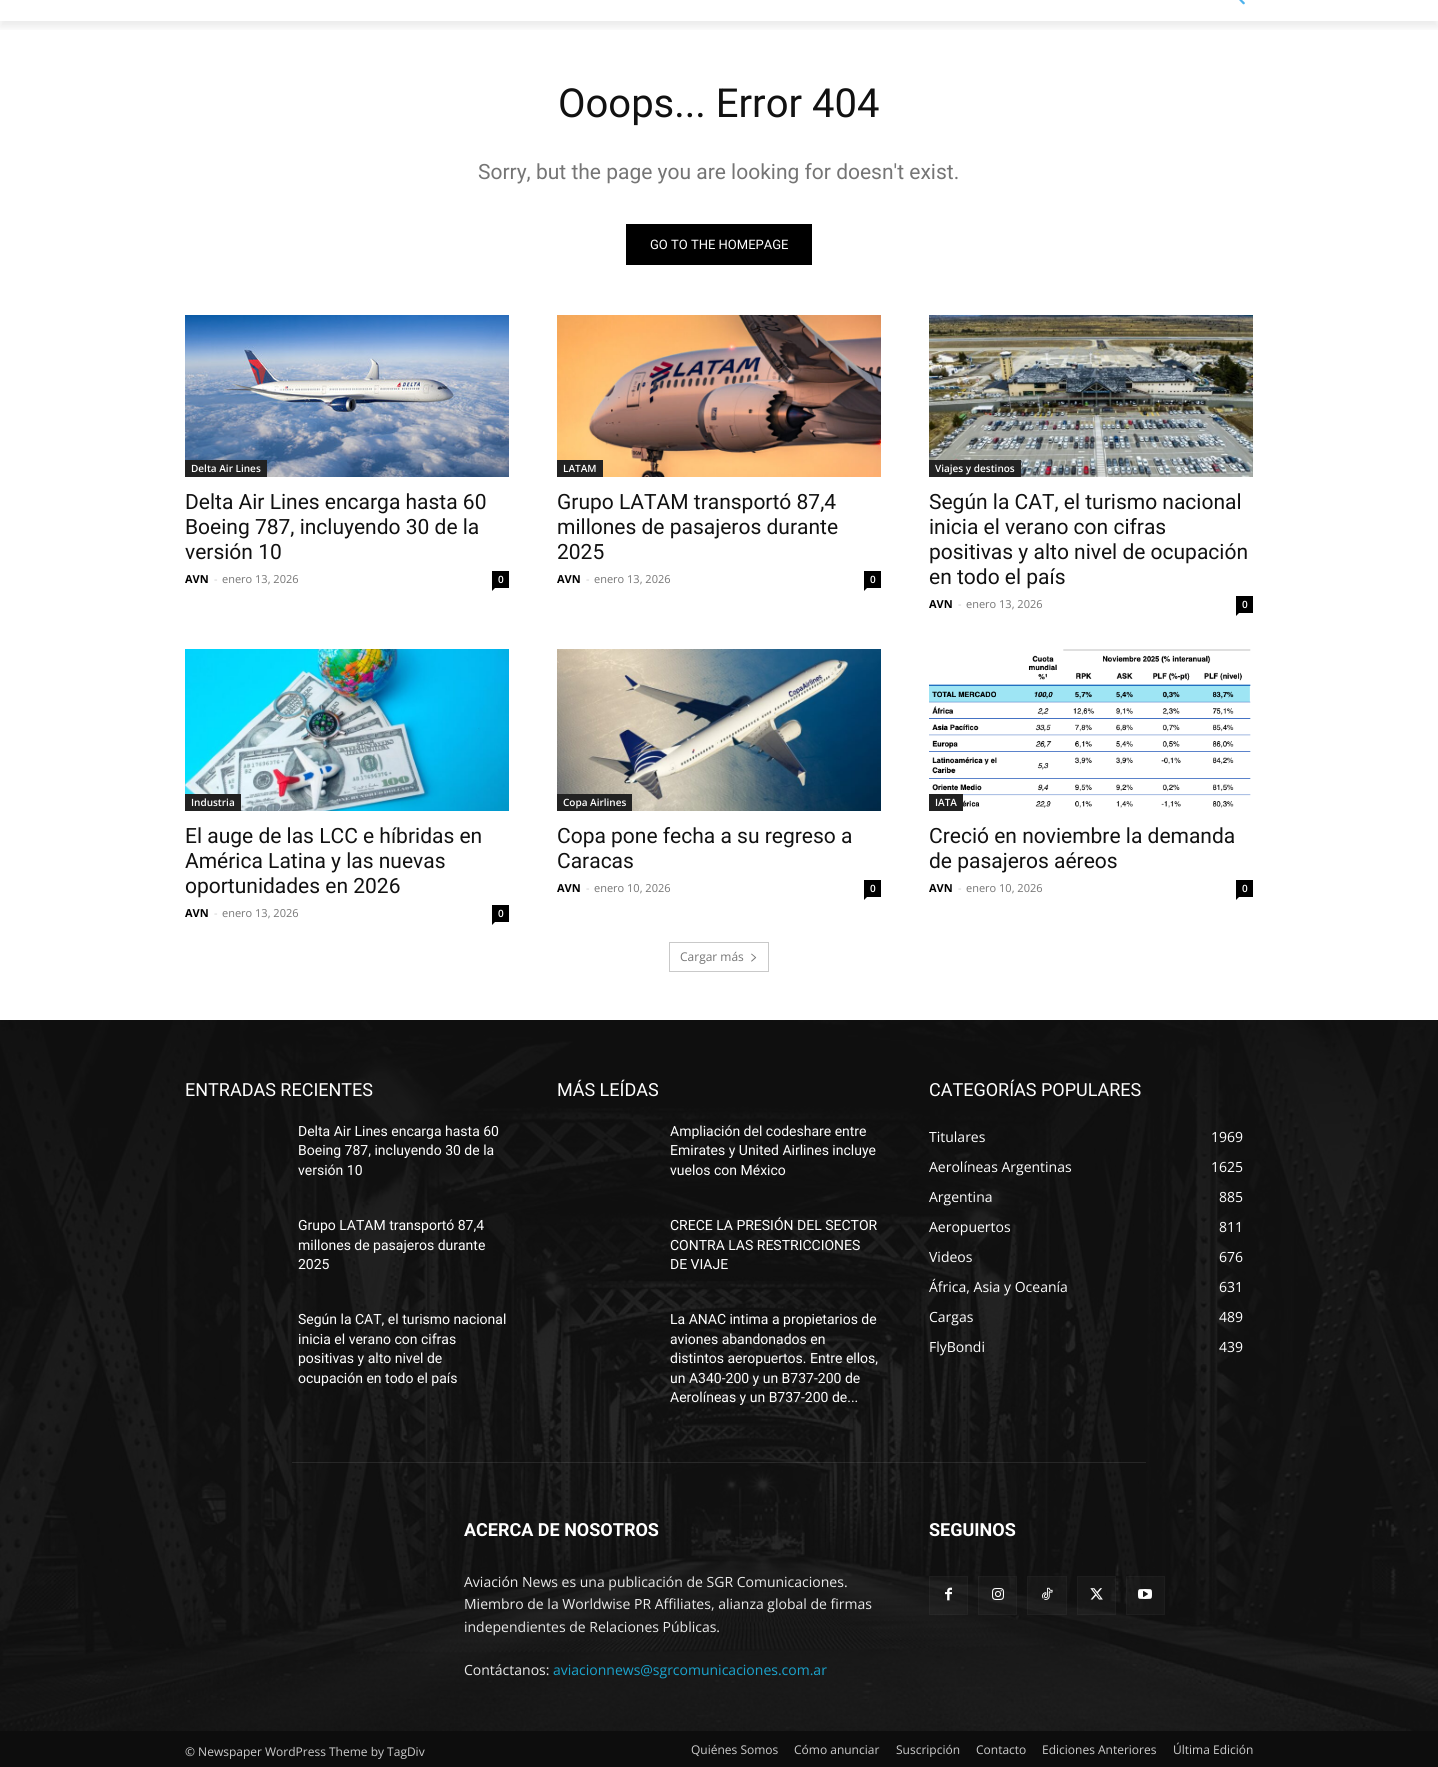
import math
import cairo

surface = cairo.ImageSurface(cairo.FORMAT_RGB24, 1438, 1767)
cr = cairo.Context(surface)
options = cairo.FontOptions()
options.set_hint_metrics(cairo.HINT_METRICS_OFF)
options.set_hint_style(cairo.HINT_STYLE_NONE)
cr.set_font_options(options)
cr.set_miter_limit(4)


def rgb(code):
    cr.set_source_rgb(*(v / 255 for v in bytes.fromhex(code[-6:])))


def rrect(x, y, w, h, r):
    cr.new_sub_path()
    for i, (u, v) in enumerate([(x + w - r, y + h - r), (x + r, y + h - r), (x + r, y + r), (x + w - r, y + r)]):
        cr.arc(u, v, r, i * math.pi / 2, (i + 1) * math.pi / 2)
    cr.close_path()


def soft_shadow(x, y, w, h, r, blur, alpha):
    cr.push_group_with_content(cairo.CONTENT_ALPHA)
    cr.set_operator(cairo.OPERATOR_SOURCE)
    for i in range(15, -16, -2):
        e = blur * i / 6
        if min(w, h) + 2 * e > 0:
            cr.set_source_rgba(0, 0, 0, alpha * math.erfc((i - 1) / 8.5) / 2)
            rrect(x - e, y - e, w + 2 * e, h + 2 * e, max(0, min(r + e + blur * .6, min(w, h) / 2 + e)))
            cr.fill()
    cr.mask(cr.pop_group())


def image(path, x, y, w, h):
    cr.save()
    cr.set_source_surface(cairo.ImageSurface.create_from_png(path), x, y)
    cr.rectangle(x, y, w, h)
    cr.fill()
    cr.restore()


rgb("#ffffff")
cr.paint()
cr.save()
cr.rectangle(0, 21, 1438, 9)
cr.clip()
rgb("#000000")
soft_shadow(0, -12, 1438, 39, 0, 4, 0.08)
cr.restore()
image("img/1.png", 1239, 0, 6, 5)
rgb("#000000")
cr.rectangle(626, 224, 186, 41)
cr.fill()
image("img/2.png", 185, 315, 324, 162)
rgb("#222222")
cr.rectangle(185, 460, 82, 17)
cr.fill()
rgb("#000000")
cr.rectangle(492, 571, 17, 17)
cr.fill()
cr.new_path()
cr.move_to(492, 588)
cr.line_to(495, 588)
cr.line_to(492, 591)
cr.close_path()
cr.fill()
image("img/3.png", 557, 315, 324, 162)
rgb("#222222")
cr.rectangle(557, 460, 46, 17)
cr.fill()
rgb("#000000")
cr.rectangle(864, 571, 17, 17)
cr.fill()
cr.new_path()
cr.move_to(864, 588)
cr.line_to(867, 588)
cr.line_to(864, 591)
cr.close_path()
cr.fill()
image("img/4.png", 929, 315, 324, 162)
rgb("#222222")
cr.rectangle(929, 460, 92, 17)
cr.fill()
rgb("#000000")
cr.rectangle(1236, 596, 17, 17)
cr.fill()
cr.new_path()
cr.move_to(1236, 613)
cr.line_to(1239, 613)
cr.line_to(1236, 616)
cr.close_path()
cr.fill()
image("img/5.png", 185, 649, 324, 162)
rgb("#222222")
cr.rectangle(185, 794, 56, 17)
cr.fill()
rgb("#000000")
cr.rectangle(492, 905, 17, 17)
cr.fill()
cr.new_path()
cr.move_to(492, 922)
cr.line_to(495, 922)
cr.line_to(492, 925)
cr.close_path()
cr.fill()
image("img/6.png", 557, 649, 324, 162)
rgb("#222222")
cr.rectangle(557, 794, 75, 17)
cr.fill()
rgb("#000000")
cr.rectangle(864, 880, 17, 17)
cr.fill()
cr.new_path()
cr.move_to(864, 897)
cr.line_to(867, 897)
cr.line_to(864, 900)
cr.close_path()
cr.fill()
image("img/7.png", 929, 649, 322, 159)
rgb("#222222")
cr.rectangle(929, 794, 34, 17)
cr.fill()
rgb("#000000")
cr.rectangle(1236, 880, 17, 17)
cr.fill()
cr.new_path()
cr.move_to(1236, 897)
cr.line_to(1239, 897)
cr.line_to(1236, 900)
cr.close_path()
cr.fill()
cr.rectangle(669.5, 942.5, 99, 29)
rgb("#c9c9c9")
cr.set_line_width(1)
cr.stroke()
image("img/8.png", 751, 953, 6, 9)
rgb("#111111")
cr.rectangle(0, 1020, 1438, 711)
cr.fill()
image("img/9.png", 0, 1020, 1438, 711)
cr.set_source_rgba(1, 1, 1, 0.1)
cr.rectangle(292, 1462, 854, 1)
cr.fill()
cr.set_source_rgba(1, 1, 1, 0.03)
cr.rectangle(929, 1576, 39, 39)
cr.fill()
cr.rectangle(929.5, 1576.5, 38, 38)
cr.stroke()
image("img/10.png", 945, 1587, 7, 14)
cr.rectangle(978, 1576, 39, 39)
cr.fill()
cr.rectangle(978.5, 1576.5, 38, 38)
cr.stroke()
image("img/11.png", 992, 1588, 12, 12)
cr.rectangle(1027, 1576, 40, 39)
cr.fill()
cr.rectangle(1027.5, 1576.5, 39, 38)
cr.stroke()
image("img/12.png", 1042, 1587, 11, 13)
cr.rectangle(1077, 1576, 39, 39)
cr.fill()
cr.rectangle(1077.5, 1576.5, 38, 38)
cr.stroke()
image("img/13.png", 1090, 1588, 13, 12)
cr.rectangle(1126, 1576, 39, 39)
cr.fill()
cr.rectangle(1126.5, 1576.5, 38, 38)
cr.stroke()
image("img/14.png", 1138, 1589, 14, 10)
rgb("#0d0d0d")
cr.rectangle(0, 1731, 1438, 36)
cr.fill()
cr.select_font_face("Roboto")
cr.set_font_size(40)
rgb("#111111")
cr.move_to(558, 117)
cr.show_text("Ooops... Error 404")
cr.set_font_size(21)
rgb("#757575")
cr.move_to(478, 179)
cr.show_text("Sorry, but the page you are looking for doesn't exist.")
cr.set_font_size(13)
rgb("#ffffff")
cr.move_to(650, 249)
cr.show_text("GO TO THE HOMEPAGE")
cr.select_font_face("Open Sans SemiBold")
cr.set_font_size(10)
cr.move_to(191, 472)
cr.show_text("Delta Air Lines")
cr.select_font_face("Roboto")
cr.set_font_size(21)
rgb("#111111")
for x, y, s in [
    (185, 509, "Delta Air Lines encarga hasta 60"),
    (185, 534, "Boeing 787, incluyendo 30 de la"),
    (185, 559, "versión 10"),
]:
    cr.move_to(x, y)
    cr.show_text(s)
cr.select_font_face("Open Sans", cairo.FONT_SLANT_NORMAL, cairo.FONT_WEIGHT_BOLD)
cr.set_font_size(11)
rgb("#000000")
cr.move_to(185, 583)
cr.show_text("AVN")
cr.select_font_face("Open Sans")
rgb("#cccccc")
cr.move_to(214, 583)
cr.show_text("-")
rgb("#757575")
cr.move_to(222, 583)
cr.show_text("enero 13, 2026")
cr.select_font_face("Open Sans SemiBold")
cr.set_font_size(10)
rgb("#ffffff")
cr.move_to(498, 583)
cr.show_text("0")
cr.move_to(563, 472)
cr.show_text("LATAM")
cr.select_font_face("Roboto")
cr.set_font_size(21)
rgb("#111111")
for x, y, s in [
    (557, 509, "Grupo LATAM transportó 87,4"),
    (557, 534, "millones de pasajeros durante"),
    (557, 559, "2025"),
]:
    cr.move_to(x, y)
    cr.show_text(s)
cr.select_font_face("Open Sans", cairo.FONT_SLANT_NORMAL, cairo.FONT_WEIGHT_BOLD)
cr.set_font_size(11)
rgb("#000000")
cr.move_to(557, 583)
cr.show_text("AVN")
cr.select_font_face("Open Sans")
rgb("#cccccc")
cr.move_to(586, 583)
cr.show_text("-")
rgb("#757575")
cr.move_to(594, 583)
cr.show_text("enero 13, 2026")
cr.select_font_face("Open Sans SemiBold")
cr.set_font_size(10)
rgb("#ffffff")
cr.move_to(870, 583)
cr.show_text("0")
cr.move_to(935, 472)
cr.show_text("Viajes y destinos")
cr.select_font_face("Roboto")
cr.set_font_size(21)
rgb("#111111")
for x, y, s in [
    (929, 509, "Según la CAT, el turismo nacional"),
    (929, 534, "inicia el verano con cifras"),
    (929, 559, "positivas y alto nivel de ocupación"),
    (929, 584, "en todo el país"),
]:
    cr.move_to(x, y)
    cr.show_text(s)
cr.select_font_face("Open Sans", cairo.FONT_SLANT_NORMAL, cairo.FONT_WEIGHT_BOLD)
cr.set_font_size(11)
rgb("#000000")
cr.move_to(929, 608)
cr.show_text("AVN")
cr.select_font_face("Open Sans")
rgb("#cccccc")
cr.move_to(958, 608)
cr.show_text("-")
rgb("#757575")
cr.move_to(966, 608)
cr.show_text("enero 13, 2026")
cr.select_font_face("Open Sans SemiBold")
cr.set_font_size(10)
rgb("#ffffff")
cr.move_to(1242, 608)
cr.show_text("0")
cr.move_to(191, 806)
cr.show_text("Industria")
cr.select_font_face("Roboto")
cr.set_font_size(21)
rgb("#111111")
for x, y, s in [
    (185, 843, "El auge de las LCC e híbridas en"),
    (185, 868, "América Latina y las nuevas"),
    (185, 893, "oportunidades en 2026"),
]:
    cr.move_to(x, y)
    cr.show_text(s)
cr.select_font_face("Open Sans", cairo.FONT_SLANT_NORMAL, cairo.FONT_WEIGHT_BOLD)
cr.set_font_size(11)
rgb("#000000")
cr.move_to(185, 917)
cr.show_text("AVN")
cr.select_font_face("Open Sans")
rgb("#cccccc")
cr.move_to(214, 917)
cr.show_text("-")
rgb("#757575")
cr.move_to(222, 917)
cr.show_text("enero 13, 2026")
cr.select_font_face("Open Sans SemiBold")
cr.set_font_size(10)
rgb("#ffffff")
cr.move_to(498, 917)
cr.show_text("0")
cr.move_to(563, 806)
cr.show_text("Copa Airlines")
cr.select_font_face("Roboto")
cr.set_font_size(21)
rgb("#111111")
cr.move_to(557, 843)
cr.show_text("Copa pone fecha a su regreso a")
cr.move_to(557, 868)
cr.show_text("Caracas")
cr.select_font_face("Open Sans", cairo.FONT_SLANT_NORMAL, cairo.FONT_WEIGHT_BOLD)
cr.set_font_size(11)
rgb("#000000")
cr.move_to(557, 892)
cr.show_text("AVN")
cr.select_font_face("Open Sans")
rgb("#cccccc")
cr.move_to(586, 892)
cr.show_text("-")
rgb("#757575")
cr.move_to(594, 892)
cr.show_text("enero 10, 2026")
cr.select_font_face("Open Sans SemiBold")
cr.set_font_size(10)
rgb("#ffffff")
cr.move_to(870, 892)
cr.show_text("0")
cr.move_to(935, 806)
cr.show_text("IATA")
cr.select_font_face("Roboto")
cr.set_font_size(21)
rgb("#111111")
cr.move_to(929, 843)
cr.show_text("Creció en noviembre la demanda")
cr.move_to(929, 868)
cr.show_text("de pasajeros aéreos")
cr.select_font_face("Open Sans", cairo.FONT_SLANT_NORMAL, cairo.FONT_WEIGHT_BOLD)
cr.set_font_size(11)
rgb("#000000")
cr.move_to(929, 892)
cr.show_text("AVN")
cr.select_font_face("Open Sans")
rgb("#cccccc")
cr.move_to(958, 892)
cr.show_text("-")
rgb("#757575")
cr.move_to(966, 892)
cr.show_text("enero 10, 2026")
cr.select_font_face("Open Sans SemiBold")
cr.set_font_size(10)
rgb("#ffffff")
cr.move_to(1242, 892)
cr.show_text("0")
cr.select_font_face("Open Sans")
cr.set_font_size(12)
rgb("#757575")
cr.move_to(680, 961)
cr.show_text("Cargar más")
cr.select_font_face("Roboto")
cr.set_font_size(18)
rgb("#ffffff")
cr.move_to(185, 1096)
cr.show_text("ENTRADAS RECIENTES")
cr.set_font_size(14)
for x, y, s in [
    (298, 1136, "Delta Air Lines encarga hasta 60"),
    (298, 1155, "Boeing 787, incluyendo 30 de la"),
    (298, 1175, "versión 10"),
    (298, 1230, "Grupo LATAM transportó 87,4"),
    (298, 1250, "millones de pasajeros durante"),
    (298, 1269, "2025"),
    (298, 1324, "Según la CAT, el turismo nacional"),
    (298, 1344, "inicia el verano con cifras"),
    (298, 1363, "positivas y alto nivel de"),
    (298, 1383, "ocupación en todo el país"),
]:
    cr.move_to(x, y)
    cr.show_text(s)
cr.set_font_size(18)
cr.move_to(557, 1096)
cr.show_text("MÁS LEÍDAS")
cr.set_font_size(14)
for x, y, s in [
    (670, 1136, "Ampliación del codeshare entre"),
    (670, 1155, "Emirates y United Airlines incluye"),
    (670, 1175, "vuelos con México"),
    (670, 1230, "CRECE LA PRESIÓN DEL SECTOR"),
    (670, 1250, "CONTRA LAS RESTRICCIONES"),
    (670, 1269, "DE VIAJE"),
    (670, 1324, "La ANAC intima a propietarios de"),
    (670, 1344, "aviones abandonados en"),
    (670, 1363, "distintos aeropuertos. Entre ellos,"),
    (670, 1383, "un A340-200 y un B737-200 de"),
    (670, 1402, "Aerolíneas y un B737-200 de..."),
]:
    cr.move_to(x, y)
    cr.show_text(s)
cr.set_font_size(18)
cr.move_to(929, 1096)
cr.show_text("CATEGORÍAS POPULARES")
cr.select_font_face("Open Sans")
cr.set_font_size(14)
for x, y, s in [
    (929, 1142, "Titulares"),
    (1211, 1142, "1969"),
    (929, 1172, "Aerolíneas Argentinas"),
    (1211, 1172, "1625"),
    (929, 1202, "Argentina"),
    (1219, 1202, "885"),
    (929, 1232, "Aeropuertos"),
    (1219, 1232, "811"),
    (929, 1262, "Videos"),
    (1219, 1262, "676"),
    (929, 1292, "África, Asia y Oceanía"),
    (1219, 1292, "631"),
    (929, 1322, "Cargas"),
    (1219, 1322, "489"),
    (929, 1352, "FlyBondi"),
    (1219, 1352, "439"),
]:
    cr.move_to(x, y)
    cr.show_text(s)
cr.select_font_face("Roboto", cairo.FONT_SLANT_NORMAL, cairo.FONT_WEIGHT_BOLD)
cr.set_font_size(18)
cr.move_to(464, 1536)
cr.show_text("ACERCA DE NOSOTROS")
cr.select_font_face("Open Sans")
cr.set_font_size(14)
rgb("#eaeaea")
for x, y, s in [
    (464, 1587, "Aviación News es una publicación de SGR Comunicaciones."),
    (464, 1609, "Miembro de la Worldwise PR Affiliates, alianza global de firmas"),
    (464, 1632, "independientes de Relaciones Públicas."),
    (464, 1675, "Contáctanos:"),
]:
    cr.move_to(x, y)
    cr.show_text(s)
rgb("#1aa4ce")
cr.move_to(553, 1675)
cr.show_text("aviacionnews@sgrcomunicaciones.com.ar")
cr.select_font_face("Roboto", cairo.FONT_SLANT_NORMAL, cairo.FONT_WEIGHT_BOLD)
cr.set_font_size(18)
rgb("#ffffff")
cr.move_to(929, 1536)
cr.show_text("SEGUINOS")
cr.select_font_face("Open Sans")
cr.set_font_size(12)
rgb("#cccccc")
for x, y, s in [
    (185, 1756, "© Newspaper WordPress Theme by TagDiv"),
    (691, 1754, "Quiénes Somos"),
    (794, 1754, "Cómo anunciar"),
    (896, 1754, "Suscripción"),
    (976, 1754, "Contacto"),
    (1042, 1754, "Ediciones Anteriores"),
    (1173, 1754, "Última Edición"),
]:
    cr.move_to(x, y)
    cr.show_text(s)
surface.write_to_png("page.png")
